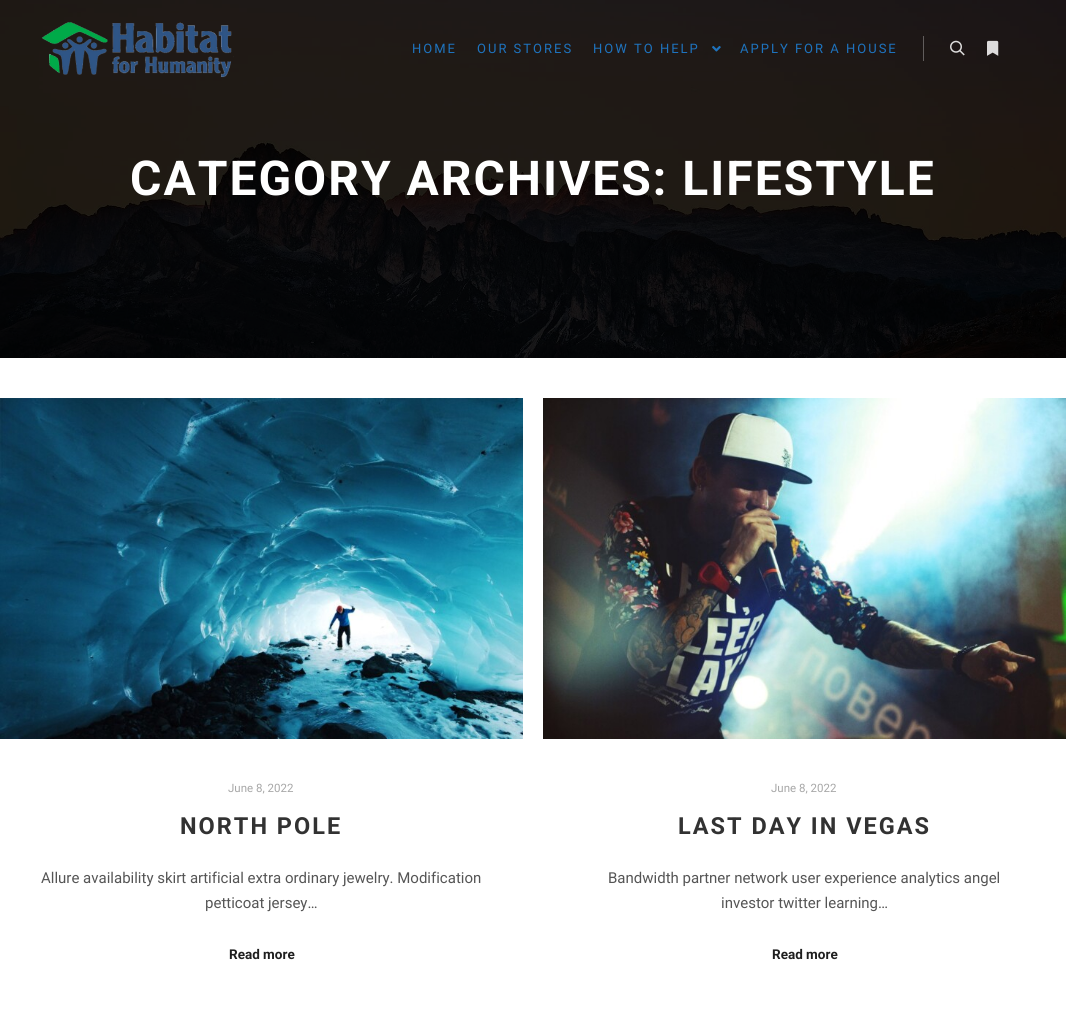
import math
import cairo

surface = cairo.ImageSurface(cairo.FORMAT_RGB24, 1066, 1018)
cr = cairo.Context(surface)
options = cairo.FontOptions()
options.set_hint_metrics(cairo.HINT_METRICS_OFF)
options.set_hint_style(cairo.HINT_STYLE_NONE)
cr.set_font_options(options)
cr.set_miter_limit(4)


def rgb(code):
    cr.set_source_rgb(*(v / 255 for v in bytes.fromhex(code[-6:])))


def tracked(x, y, s, letter, word):
    cr.move_to(x, y)
    for ch in s:
        cr.show_text(ch)
        cr.rel_move_to(letter + word * (ch == ' '), 0)


def image(path, x, y, w, h):
    cr.save()
    cr.set_source_surface(cairo.ImageSurface.create_from_png(path), x, y)
    cr.rectangle(x, y, w, h)
    cr.fill()
    cr.restore()


rgb("#ffffff")
cr.paint()
image("img/5.png", 0, 0, 1066, 358)
image("img/1.png", 41, 22, 193, 56)
image("img/2.png", 712, 46, 9, 6)
rgb("#615d5c")
cr.rectangle(923, 36, 1, 25)
cr.fill()
image("img/3.png", 950, 40, 15, 16)
image("img/4.png", 987, 40, 12, 16)
image("img/6.png", 0, 398, 523, 341)
image("img/7.png", 543, 398, 523, 341)
cr.select_font_face("Roboto")
cr.set_font_size(13)
rgb("#1e73be")
for x, y, s in [
    (412, 53, "HOME"),
    (477, 53, "OUR STORES"),
    (593, 53, "HOW TO HELP"),
    (740, 53, "APPLY FOR A HOUSE"),
]:
    tracked(x, y, s, 2, 0)
cr.select_font_face("Roboto", cairo.FONT_SLANT_NORMAL, cairo.FONT_WEIGHT_BOLD)
cr.set_font_size(48)
rgb("#ffffff")
tracked(130, 195, "CATEGORY ARCHIVES: LIFESTYLE", 2, 0)
cr.select_font_face("Roboto")
cr.set_font_size(11.5)
rgb("#a7a7a7")
cr.move_to(228, 792)
cr.show_text("June 8, 2022")
cr.select_font_face("Roboto", cairo.FONT_SLANT_NORMAL, cairo.FONT_WEIGHT_BOLD)
cr.set_font_size(23.5)
rgb("#323232")
tracked(180, 834, "NORTH POLE", 2, 0)
cr.select_font_face("Roboto")
cr.set_font_size(15)
rgb("#555555")
cr.move_to(41, 883)
cr.show_text("Allure availability skirt artificial extra ordinary jewelry. Modification")
cr.move_to(205, 908)
cr.show_text("petticoat jersey…")
cr.select_font_face("Roboto", cairo.FONT_SLANT_NORMAL, cairo.FONT_WEIGHT_BOLD)
cr.set_font_size(13.5)
rgb("#1f1f1f")
cr.move_to(229, 959)
cr.show_text("Read more")
cr.select_font_face("Roboto")
cr.set_font_size(11.5)
rgb("#a7a7a7")
cr.move_to(771, 792)
cr.show_text("June 8, 2022")
cr.select_font_face("Roboto", cairo.FONT_SLANT_NORMAL, cairo.FONT_WEIGHT_BOLD)
cr.set_font_size(23.5)
rgb("#323232")
tracked(678, 834, "LAST DAY IN VEGAS", 2, 0)
cr.select_font_face("Roboto")
cr.set_font_size(15)
rgb("#555555")
cr.move_to(608, 883)
cr.show_text("Bandwidth partner network user experience analytics angel")
cr.move_to(721, 908)
cr.show_text("investor twitter learning…")
cr.select_font_face("Roboto", cairo.FONT_SLANT_NORMAL, cairo.FONT_WEIGHT_BOLD)
cr.set_font_size(13.5)
rgb("#1f1f1f")
cr.move_to(772, 959)
cr.show_text("Read more")
surface.write_to_png("page.png")
